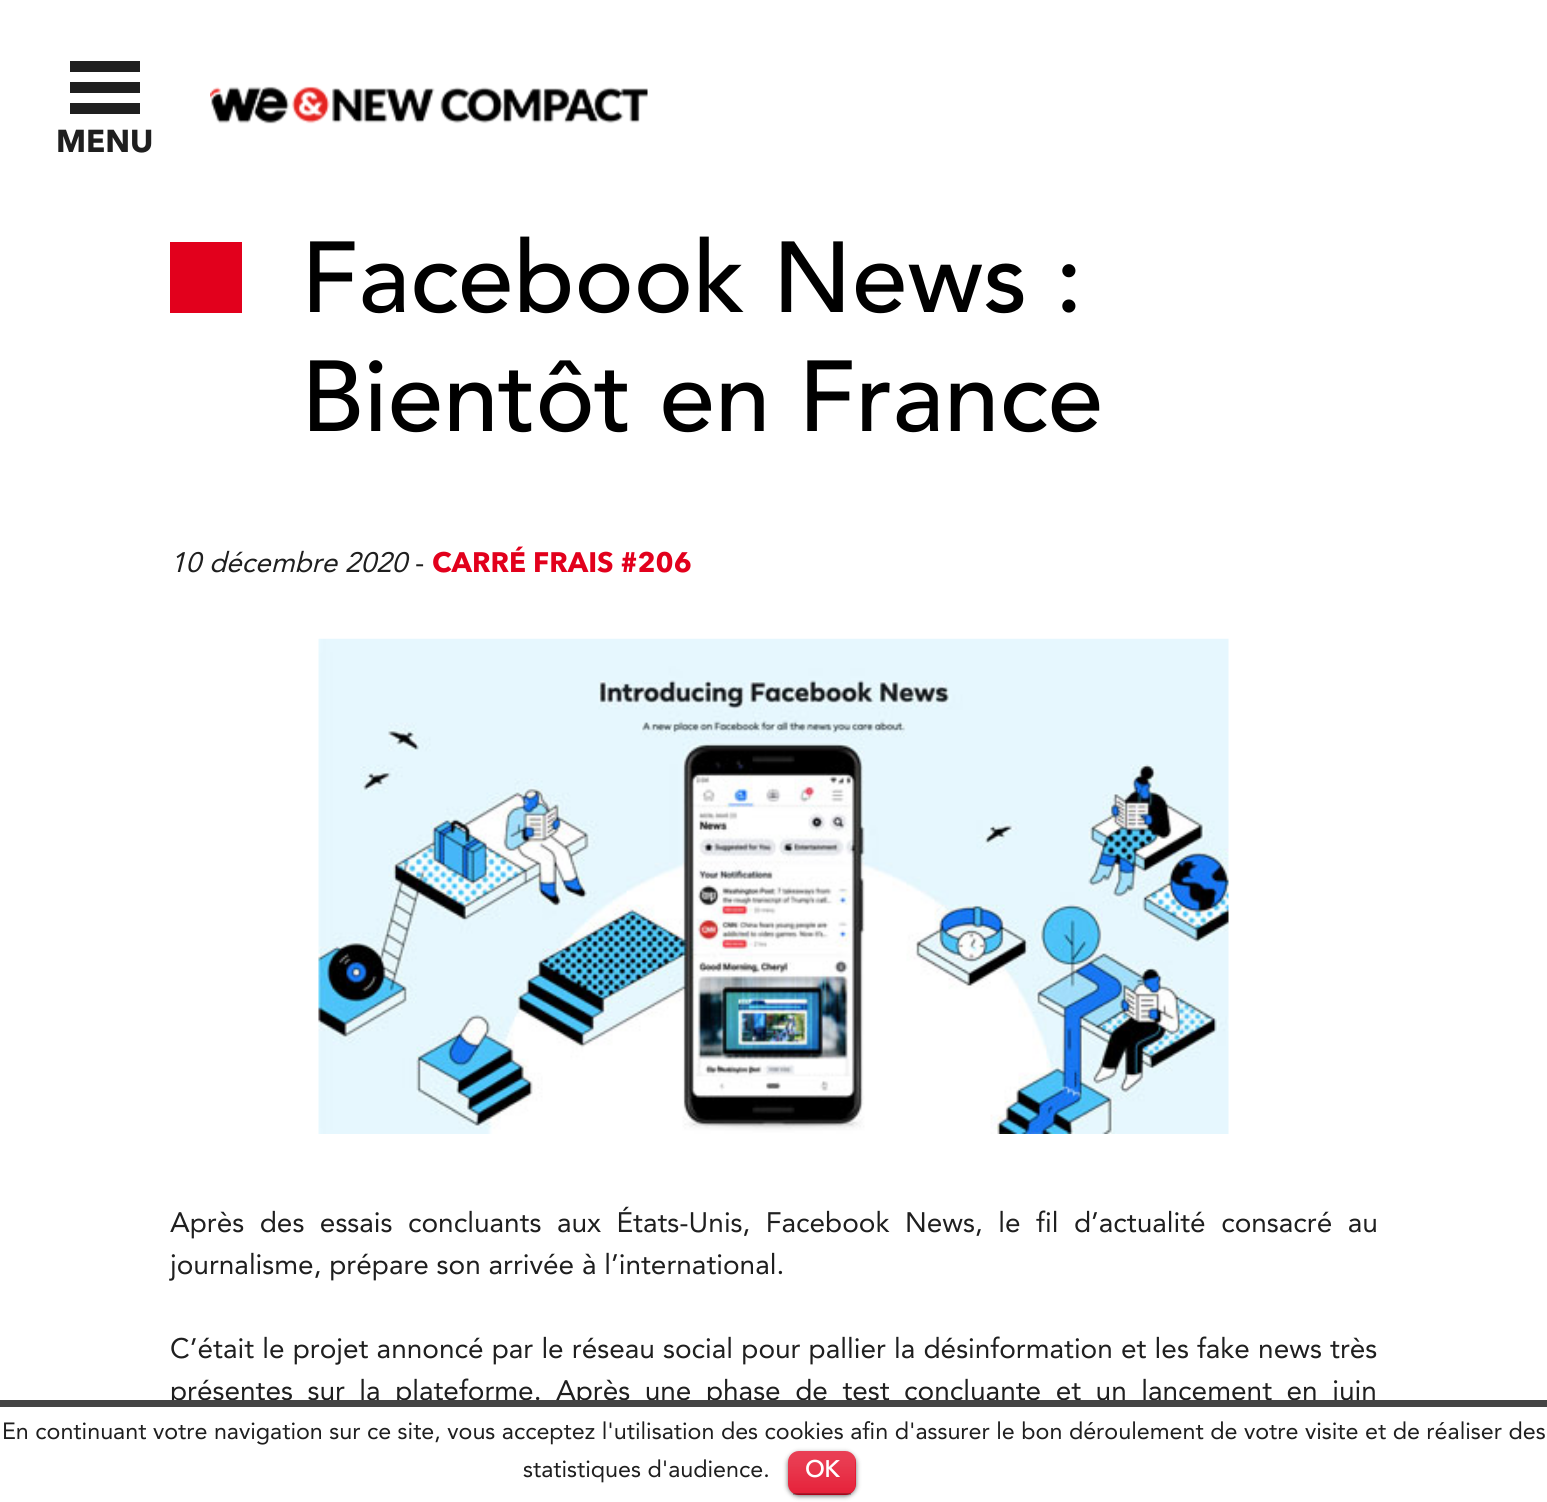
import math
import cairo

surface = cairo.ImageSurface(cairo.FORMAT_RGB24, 1547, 1502)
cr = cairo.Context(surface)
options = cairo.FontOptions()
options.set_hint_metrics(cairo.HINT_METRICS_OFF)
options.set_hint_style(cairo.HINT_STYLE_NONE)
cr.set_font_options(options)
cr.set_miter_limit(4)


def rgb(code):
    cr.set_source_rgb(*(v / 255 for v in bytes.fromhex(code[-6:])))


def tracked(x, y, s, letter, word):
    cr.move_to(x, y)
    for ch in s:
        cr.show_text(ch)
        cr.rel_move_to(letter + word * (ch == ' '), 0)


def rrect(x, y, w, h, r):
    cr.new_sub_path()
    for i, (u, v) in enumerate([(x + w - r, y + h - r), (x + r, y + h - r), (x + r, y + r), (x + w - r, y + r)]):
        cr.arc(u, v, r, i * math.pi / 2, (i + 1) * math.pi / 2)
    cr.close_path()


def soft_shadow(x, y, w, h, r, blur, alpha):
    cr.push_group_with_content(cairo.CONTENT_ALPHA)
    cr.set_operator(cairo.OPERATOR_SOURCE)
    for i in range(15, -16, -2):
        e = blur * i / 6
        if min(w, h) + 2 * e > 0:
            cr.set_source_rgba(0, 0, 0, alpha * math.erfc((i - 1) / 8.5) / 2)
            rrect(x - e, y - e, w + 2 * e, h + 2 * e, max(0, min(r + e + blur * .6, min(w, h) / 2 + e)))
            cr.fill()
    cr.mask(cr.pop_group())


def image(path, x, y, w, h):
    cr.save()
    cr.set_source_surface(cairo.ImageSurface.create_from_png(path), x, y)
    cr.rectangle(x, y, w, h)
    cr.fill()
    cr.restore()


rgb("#ffffff")
cr.paint()
image("img/1.png", 210, 86, 438, 38)
for x, y, w, h, color in [
    (70, 61, 70, 11, "#1f1f1f"),
    (70, 82, 70, 11, "#1f1f1f"),
    (70, 103, 70, 11, "#1f1f1f"),
    (170, 242, 72, 71, "#e2001c"),
]:
    rgb(color)
    cr.rectangle(x, y, w, h)
    cr.fill()
image("img/2.png", 318, 638, 911, 496)
rgb("#000000")
soft_shadow(788, 1453, 68, 43, 11, 2.5, 0.6)
rgb("#e2001c")
rrect(788, 1451, 68, 44, 11)
cr.fill()
image("img/3.png", 788, 1451, 68, 44)
cr.set_source_rgba(0, 0, 0, 0.25)
cr.rectangle(793, 1493, 58, 2)
cr.fill()
cr.select_font_face("Avenir Next", cairo.FONT_SLANT_NORMAL, cairo.FONT_WEIGHT_BOLD)
cr.set_font_size(31.5)
rgb("#1f1f1f")
cr.move_to(56, 152)
cr.show_text("MENU")
cr.select_font_face("Avenir Medium")
cr.set_font_size(99.75)
rgb("#000000")
cr.move_to(301, 312)
cr.show_text("Facebook News :")
cr.move_to(301, 431)
cr.show_text("Bientôt en France")
cr.select_font_face("Avenir", cairo.FONT_SLANT_ITALIC)
cr.set_font_size(28)
rgb("#1f1f1f")
cr.move_to(170, 572)
cr.show_text("10 décembre 2020")
cr.select_font_face("Avenir")
cr.move_to(415, 572)
cr.show_text("-")
cr.select_font_face("Avenir Next", cairo.FONT_SLANT_NORMAL, cairo.FONT_WEIGHT_BOLD)
rgb("#e2001c")
cr.move_to(432, 572)
cr.show_text("CARRÉ FRAIS #206")
cr.select_font_face("Avenir")
rgb("#1f1f1f")
tracked(170, 1232, "Après des essais concluants aux États-Unis, Facebook News, le fil d’actualité consacré au", 0, 7.75)
cr.move_to(170, 1274)
cr.show_text("journalisme, prépare son arrivée à l’international.")
tracked(170, 1358, "C’était le projet annoncé par le réseau social pour pallier la désinformation et les fake news très", 0, 0.4)
tracked(170, 1400, "présentes sur la plateforme. Après une phase de test concluante et un lancement en juin", 0, 6.75)
rgb("#444444")
cr.rectangle(0, 1400, 1547, 7)
cr.fill()
cr.set_font_size(23.33)
rgb("#1f1f1f")
cr.move_to(2, 1439)
cr.show_text("En continuant votre navigation sur ce site, vous acceptez l'utilisation des cookies afin d'assurer le bon déroulement de votre visite et de réaliser des")
cr.move_to(523, 1477)
cr.show_text("statistiques d'audience.")
cr.select_font_face("Avenir", cairo.FONT_SLANT_NORMAL, cairo.FONT_WEIGHT_BOLD)
cr.set_font_size(23)
rgb("#ffffff")
cr.move_to(805, 1477)
cr.show_text("OK")
surface.write_to_png("page.png")
